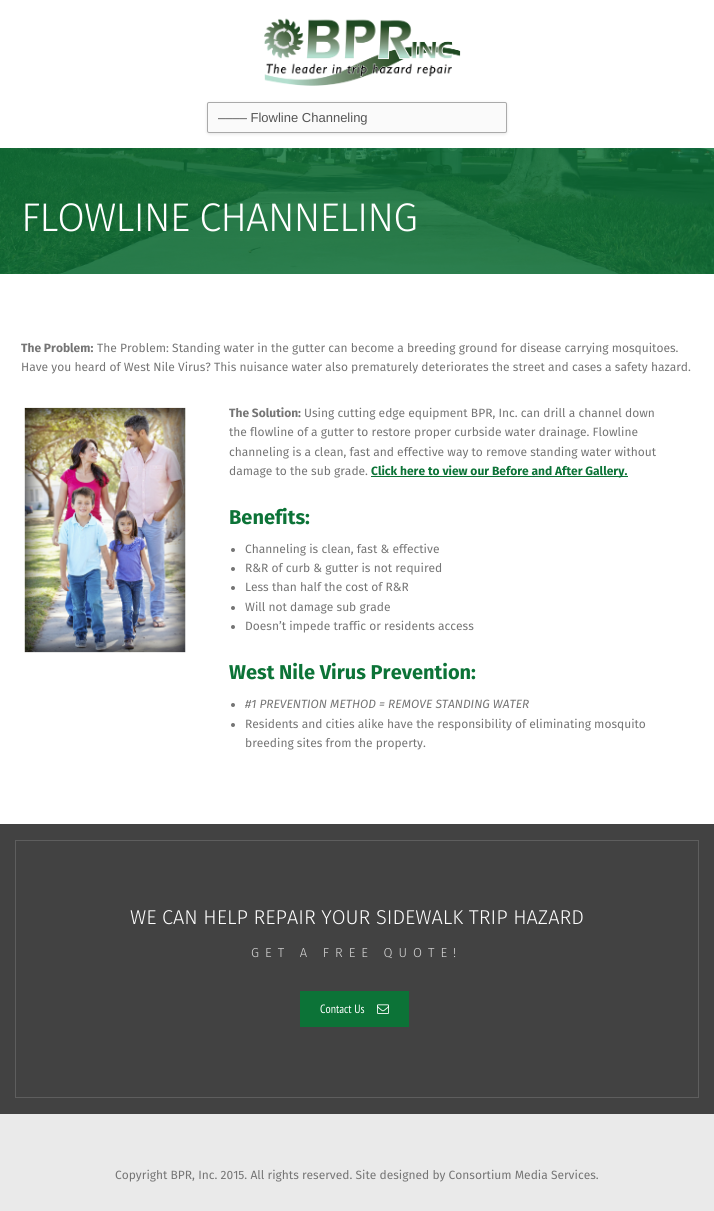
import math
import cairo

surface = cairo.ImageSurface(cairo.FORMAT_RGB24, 714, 1211)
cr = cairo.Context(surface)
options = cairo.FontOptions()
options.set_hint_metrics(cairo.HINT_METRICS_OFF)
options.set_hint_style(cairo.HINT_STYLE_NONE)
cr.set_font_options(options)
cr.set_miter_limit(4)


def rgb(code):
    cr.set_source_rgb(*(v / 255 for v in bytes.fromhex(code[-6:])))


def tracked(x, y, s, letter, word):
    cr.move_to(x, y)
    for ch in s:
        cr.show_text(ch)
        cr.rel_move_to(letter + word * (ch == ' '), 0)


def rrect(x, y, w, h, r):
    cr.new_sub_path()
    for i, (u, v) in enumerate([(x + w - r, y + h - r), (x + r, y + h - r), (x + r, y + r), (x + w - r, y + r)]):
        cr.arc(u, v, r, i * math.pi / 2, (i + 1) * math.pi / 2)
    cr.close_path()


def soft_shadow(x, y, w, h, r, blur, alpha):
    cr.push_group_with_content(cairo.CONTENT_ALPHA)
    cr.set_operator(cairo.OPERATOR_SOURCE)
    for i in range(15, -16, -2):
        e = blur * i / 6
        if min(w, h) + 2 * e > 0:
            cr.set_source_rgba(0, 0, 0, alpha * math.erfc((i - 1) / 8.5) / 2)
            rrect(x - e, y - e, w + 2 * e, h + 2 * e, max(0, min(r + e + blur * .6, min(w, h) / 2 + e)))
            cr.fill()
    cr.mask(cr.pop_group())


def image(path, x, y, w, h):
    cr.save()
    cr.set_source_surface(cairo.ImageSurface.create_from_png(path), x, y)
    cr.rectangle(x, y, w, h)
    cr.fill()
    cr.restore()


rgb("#ffffff")
cr.paint()
image("img/1.png", 264, 18, 197, 68)
rgb("#000000")
soft_shadow(207, 103, 300, 31, 2, 1.5, 0.1)
rgb("#fafafa")
rrect(207.5, 102.5, 299, 30, 1.5)
cr.fill_preserve()
rgb("#aaaaaa")
cr.set_line_width(1)
cr.stroke()
image("img/2.png", 0, 148, 714, 126)
image("img/3.png", 24, 407, 162, 246)
rgb("#0c7337")
cr.rectangle(371, 476, 257, 1)
cr.fill()
rgb("#757575")
cr.arc(233, 550, 2, 0, 2 * math.pi)
cr.fill()
cr.arc(233, 569, 2, 0, 2 * math.pi)
cr.fill()
cr.arc(233, 588, 2, 0, 2 * math.pi)
cr.fill()
cr.arc(233, 608, 2, 0, 2 * math.pi)
cr.fill()
cr.arc(233, 627, 2, 0, 2 * math.pi)
cr.fill()
cr.arc(233, 705, 2, 0, 2 * math.pi)
cr.fill()
cr.arc(233, 725, 2, 0, 2 * math.pi)
cr.fill()
rgb("#424242")
cr.rectangle(0, 824, 714, 290)
cr.fill()
cr.rectangle(15.5, 840.5, 683, 257)
rgb("#5e5e5e")
cr.stroke()
rgb("#0c7337")
cr.rectangle(300, 991, 109, 36)
cr.fill()
image("img/4.png", 377, 1004, 12, 10)
rgb("#eaeaea")
cr.rectangle(0, 1114, 714, 97)
cr.fill()
cr.select_font_face("Liberation Sans")
cr.set_font_size(13)
rgb("#555555")
cr.move_to(218, 122)
cr.show_text("–––– Flowline Channeling")
cr.select_font_face("Fira Sans Light")
cr.set_font_size(40)
rgb("#ffffff")
tracked(21, 231, "FLOWLINE CHANNELING", -1, 0)
cr.select_font_face("Fira Sans", cairo.FONT_SLANT_NORMAL, cairo.FONT_WEIGHT_BOLD)
cr.set_font_size(12)
rgb("#757575")
cr.move_to(21, 352)
cr.show_text("The Problem:")
cr.select_font_face("Fira Sans")
cr.move_to(97, 352)
cr.show_text("The Problem: Standing water in the gutter can become a breeding ground for disease carrying mosquitoes.")
cr.move_to(21, 371)
cr.show_text("Have you heard of West Nile Virus? This nuisance water also prematurely deteriorates the street and cases a safety hazard.")
cr.select_font_face("Fira Sans", cairo.FONT_SLANT_NORMAL, cairo.FONT_WEIGHT_BOLD)
cr.move_to(229, 417)
cr.show_text("The Solution:")
cr.select_font_face("Fira Sans")
for x, y, s in [
    (304, 417, "Using cutting edge equipment BPR, Inc. can drill a channel down"),
    (229, 436, "the flowline of a gutter to restore proper curbside water drainage. Flowline"),
    (229, 456, "channeling is a clean, fast and effective way to remove standing water without"),
    (229, 475, "damage to the sub grade."),
]:
    cr.move_to(x, y)
    cr.show_text(s)
cr.select_font_face("Fira Sans", cairo.FONT_SLANT_NORMAL, cairo.FONT_WEIGHT_BOLD)
rgb("#0c7337")
cr.move_to(371, 475)
cr.show_text("Click here to view our Before and After Gallery.")
cr.set_font_size(20)
cr.move_to(229, 524)
cr.show_text("Benefits:")
cr.select_font_face("Fira Sans")
cr.set_font_size(12)
rgb("#757575")
for x, y, s in [
    (245, 553, "Channeling is clean, fast & effective"),
    (245, 572, "R&R of curb & gutter is not required"),
    (245, 591, "Less than half the cost of R&R"),
    (245, 611, "Will not damage sub grade"),
    (245, 630, "Doesn’t impede traffic or residents access"),
]:
    cr.move_to(x, y)
    cr.show_text(s)
cr.select_font_face("Fira Sans", cairo.FONT_SLANT_NORMAL, cairo.FONT_WEIGHT_BOLD)
cr.set_font_size(20)
rgb("#0c7337")
cr.move_to(229, 679)
cr.show_text("West Nile Virus Prevention:")
cr.select_font_face("Fira Sans", cairo.FONT_SLANT_ITALIC)
cr.set_font_size(12)
rgb("#757575")
cr.move_to(245, 708)
cr.show_text("#1 PREVENTION METHOD = REMOVE STANDING WATER")
cr.select_font_face("Fira Sans")
cr.move_to(245, 728)
cr.show_text("Residents and cities alike have the responsibility of eliminating mosquito")
cr.move_to(245, 747)
cr.show_text("breeding sites from the property.")
cr.select_font_face("Fira Sans Light")
cr.set_font_size(20)
rgb("#ffffff")
cr.move_to(130, 924)
cr.show_text("WE CAN HELP REPAIR YOUR SIDEWALK TRIP HAZARD")
cr.set_font_size(13)
rgb("#d9d9d9")
tracked(251, 957, "GET A FREE QUOTE!", 6, 0)
cr.select_font_face("PT Sans Narrow")
cr.set_font_size(12)
rgb("#ffffff")
cr.move_to(320, 1013)
cr.show_text("Contact Us")
cr.select_font_face("Fira Sans")
rgb("#757575")
cr.move_to(115, 1179)
cr.show_text("Copyright BPR, Inc. 2015. All rights reserved. Site designed by Consortium Media Services.")
surface.write_to_png("page.png")
